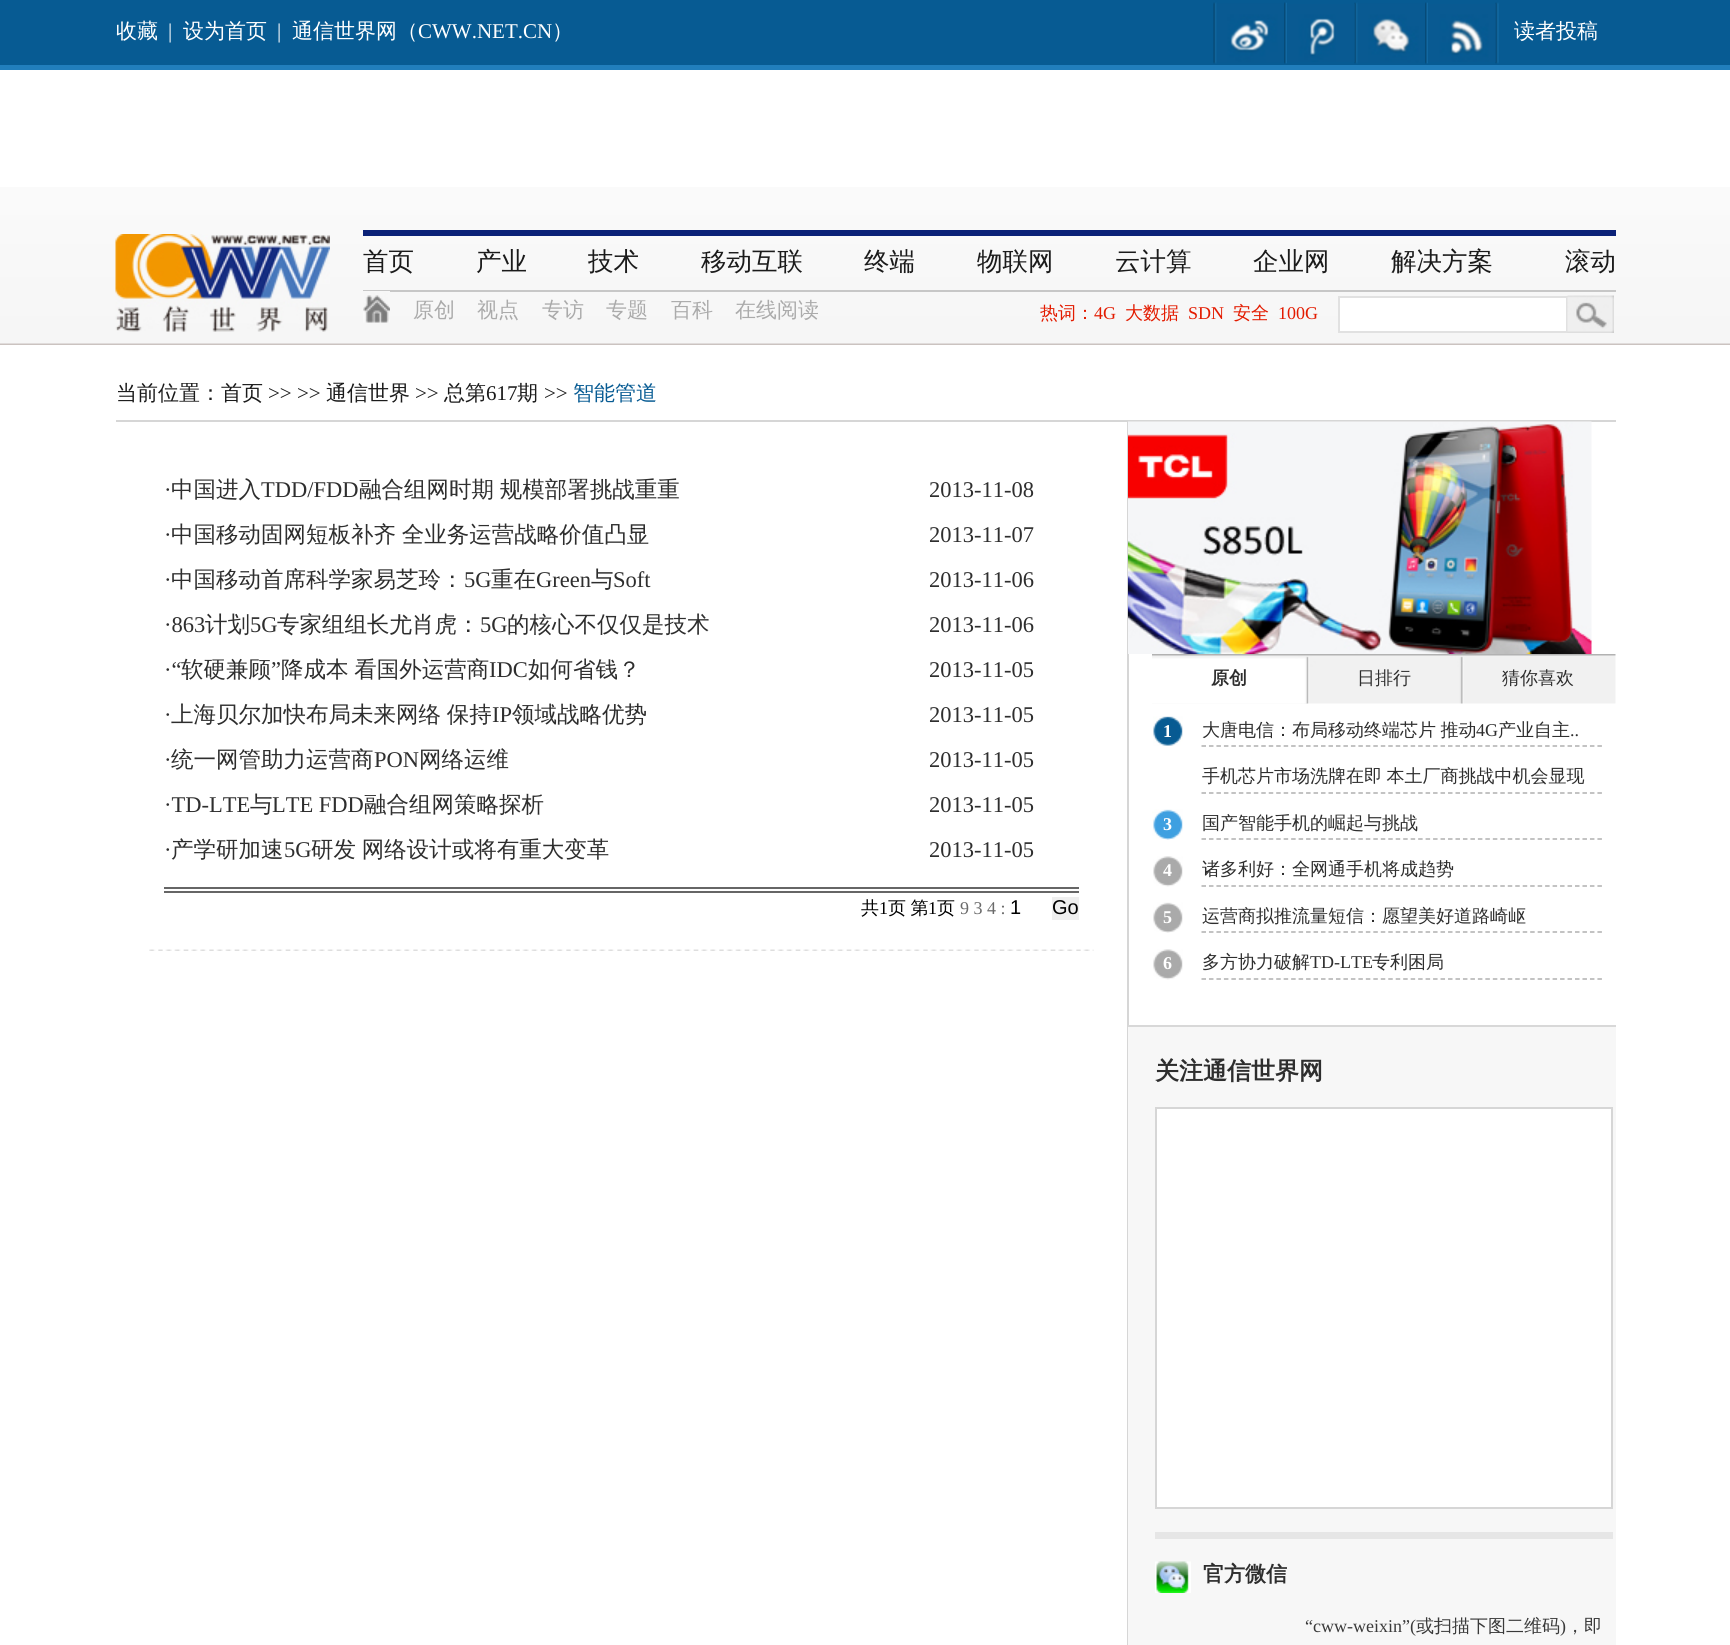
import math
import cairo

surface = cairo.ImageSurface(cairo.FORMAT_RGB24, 1730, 1645)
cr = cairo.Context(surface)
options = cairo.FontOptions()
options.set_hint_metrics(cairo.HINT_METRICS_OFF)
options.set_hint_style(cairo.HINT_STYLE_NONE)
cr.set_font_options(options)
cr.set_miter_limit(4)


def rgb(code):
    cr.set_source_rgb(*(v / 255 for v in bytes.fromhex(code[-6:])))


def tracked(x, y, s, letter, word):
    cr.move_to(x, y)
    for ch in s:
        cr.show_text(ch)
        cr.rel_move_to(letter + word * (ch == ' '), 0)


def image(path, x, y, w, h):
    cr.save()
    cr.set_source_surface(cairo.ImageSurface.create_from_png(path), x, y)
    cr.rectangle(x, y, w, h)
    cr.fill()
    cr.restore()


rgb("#ffffff")
cr.paint()
rgb("#075b93")
cr.rectangle(0, 0, 1730, 65)
cr.fill()
rgb("#217ebc")
cr.rectangle(0, 65, 1730, 5)
cr.fill()
image("img/1.png", 1213, 2, 4, 62)
image("img/3.png", 1284, 2, 3, 62)
image("img/2.png", 1216, 3, 69, 60)
image("img/5.png", 1354, 2, 4, 62)
image("img/4.png", 1286, 4, 69, 58)
image("img/3.png", 1425, 2, 3, 62)
image("img/6.png", 1357, 3, 69, 60)
image("img/5.png", 1495, 2, 4, 62)
image("img/7.png", 1427, 4, 69, 58)
image("img/8.png", 0, 187, 1730, 158)
image("img/9.png", 115, 234, 215, 98)
rgb("#0b2278")
cr.rectangle(363, 230, 1253, 6)
cr.fill()
rgb("#c7c7c7")
cr.rectangle(363, 290, 1253, 2)
cr.fill()
image("img/10.png", 363, 291, 27, 32)
rgb("#ffffff")
cr.rectangle(1339, 297, 228, 35)
cr.fill_preserve()
rgb("#e1e1e1")
cr.stroke()
image("img/11.png", 1567, 295, 47, 38)
rgb("#d6d6d6")
cr.rectangle(116, 420, 1500, 2)
cr.fill()
cr.rectangle(1127, 422, 2, 1223)
cr.fill()
image("img/12.png", 149, 949, 945, 2)
for x, y, w, h, color in [
    (164, 887, 915, 2, "#666666"),
    (164, 891, 915, 2, "#666666"),
    (1052, 897, 27, 23, "#efefef"),
]:
    rgb(color)
    cr.rectangle(x, y, w, h)
    cr.fill()
image("img/13.png", 1128, 421, 464, 233)
image("img/14.png", 1152, 654, 464, 50)
image("img/15.png", 1152, 657, 155, 47)
image("img/16.png", 1153, 716, 30, 30)
cr.new_path()
cr.move_to(1201.5, 746)
cr.line_to(1602, 746)
rgb("#afafaf")
cr.set_line_width(1.5)
cr.set_dash([4.5, 2.97])
cr.stroke()
cr.new_path()
cr.move_to(1201.5, 793)
cr.line_to(1602, 793)
cr.stroke()
image("img/17.png", 1152, 809, 31, 31)
cr.new_path()
cr.move_to(1201.5, 839)
cr.line_to(1602, 839)
cr.stroke()
image("img/18.png", 1153, 856, 30, 31)
cr.new_path()
cr.move_to(1201.5, 886)
cr.line_to(1602, 886)
cr.stroke()
image("img/19.png", 1153, 902, 30, 31)
cr.new_path()
cr.move_to(1201.5, 932)
cr.line_to(1602, 932)
cr.stroke()
image("img/18.png", 1153, 949, 30, 31)
cr.new_path()
cr.move_to(1201.5, 979)
cr.line_to(1602, 979)
cr.stroke()
rgb("#f7f7f7")
cr.rectangle(1128, 1027, 488, 618)
cr.fill()
rgb("#d8d8d8")
cr.rectangle(1128, 1025, 488, 2)
cr.fill()
rgb("#ffffff")
cr.rectangle(1156, 1108, 456, 400)
cr.fill_preserve()
rgb("#d6d6d6")
cr.set_line_width(2)
cr.set_dash([])
cr.stroke()
rgb("#e6e6e6")
cr.rectangle(1155, 1532, 458, 7)
cr.fill()
image("img/20.png", 1155, 1561, 36, 32)
cr.select_font_face("WenQuanYi Zen Hei Medium")
cr.set_font_size(21)
rgb("#ffffff")
cr.move_to(116, 38)
cr.show_text("收藏")
cr.select_font_face("Liberation Serif")
cr.move_to(168, 38)
cr.show_text("|")
cr.select_font_face("WenQuanYi Zen Hei Medium")
cr.move_to(183, 38)
cr.show_text("设为首页")
cr.select_font_face("Liberation Serif")
cr.move_to(277, 38)
cr.show_text("|")
cr.select_font_face("WenQuanYi Zen Hei Medium")
cr.move_to(292, 38)
cr.show_text("通信世界网（")
cr.select_font_face("Liberation Serif")
cr.move_to(418, 38)
cr.show_text("CWW.NET.CN")
cr.select_font_face("WenQuanYi Zen Hei Medium")
cr.move_to(552, 38)
cr.show_text("）")
cr.move_to(1514, 38)
cr.show_text("读者投稿")
cr.set_font_size(25.5)
rgb("#1b1b1b")
for x, y, s in [
    (363, 270, "首页"),
    (476, 270, "产业"),
    (588, 270, "技术"),
    (701, 270, "移动互联"),
    (864, 270, "终端"),
    (977, 270, "物联网"),
    (1115, 270, "云计算"),
    (1253, 270, "企业网"),
    (1391, 270, "解决方案"),
    (1565, 270, "滚动"),
]:
    cr.move_to(x, y)
    cr.show_text(s)
cr.set_font_size(21)
rgb("#ababab")
for x, y, s in [
    (413, 317, "原创"),
    (477, 317, "视点"),
    (542, 317, "专访"),
    (606, 317, "专题"),
    (671, 317, "百科"),
    (735, 317, "在线阅读"),
]:
    cr.move_to(x, y)
    cr.show_text(s)
cr.set_font_size(18)
rgb("#e31b00")
cr.move_to(1040, 319)
cr.show_text("热词：")
cr.select_font_face("Liberation Serif")
cr.move_to(1094, 319)
cr.show_text("4G")
cr.select_font_face("WenQuanYi Zen Hei Medium")
cr.move_to(1125, 319)
cr.show_text("大数据")
cr.select_font_face("Liberation Serif")
cr.move_to(1188, 319)
cr.show_text("SDN")
cr.select_font_face("WenQuanYi Zen Hei Medium")
cr.move_to(1233, 319)
cr.show_text("安全")
cr.select_font_face("Liberation Serif")
cr.move_to(1278, 319)
cr.show_text("100G")
cr.select_font_face("WenQuanYi Zen Hei Medium")
cr.set_font_size(21)
rgb("#1b1b1b")
cr.move_to(116, 400)
cr.show_text("当前位置：首页")
cr.select_font_face("Liberation Serif")
cr.move_to(268, 400)
cr.show_text(">> >>")
cr.select_font_face("WenQuanYi Zen Hei Medium")
cr.move_to(326, 400)
cr.show_text("通信世界")
cr.select_font_face("Liberation Serif")
cr.move_to(415, 400)
cr.show_text(">>")
cr.select_font_face("WenQuanYi Zen Hei Medium")
cr.move_to(444, 400)
cr.show_text("总第")
cr.select_font_face("Liberation Serif")
cr.move_to(486, 400)
cr.show_text("617")
cr.select_font_face("WenQuanYi Zen Hei Medium")
cr.move_to(517, 400)
cr.show_text("期")
cr.select_font_face("Liberation Serif")
cr.move_to(544, 400)
cr.show_text(">>")
cr.select_font_face("WenQuanYi Zen Hei Medium")
rgb("#075b93")
cr.move_to(573, 400)
cr.show_text("智能管道")
cr.select_font_face("Liberation Serif")
cr.set_font_size(22.5)
rgb("#2e2e2e")
cr.move_to(164, 497)
cr.show_text("·")
cr.select_font_face("WenQuanYi Zen Hei Medium")
cr.move_to(171, 497)
cr.show_text("中国进入")
cr.select_font_face("Liberation Serif")
cr.move_to(261, 497)
cr.show_text("TDD/FDD")
cr.select_font_face("WenQuanYi Zen Hei Medium")
tracked(359, 497, "融合组网时期 规模部署挑战重重", 0, -1)
cr.select_font_face("Liberation Serif")
cr.move_to(929, 497)
cr.show_text("2013-11-08")
cr.move_to(164, 542)
cr.show_text("·")
cr.select_font_face("WenQuanYi Zen Hei Medium")
tracked(171, 542, "中国移动固网短板补齐 全业务运营战略价值凸显", 0, -1)
cr.select_font_face("Liberation Serif")
cr.move_to(929, 542)
cr.show_text("2013-11-07")
cr.move_to(164, 587)
cr.show_text("·")
cr.select_font_face("WenQuanYi Zen Hei Medium")
cr.move_to(171, 587)
cr.show_text("中国移动首席科学家易芝玲：")
cr.select_font_face("Liberation Serif")
cr.move_to(464, 587)
cr.show_text("5G")
cr.select_font_face("WenQuanYi Zen Hei Medium")
cr.move_to(491, 587)
cr.show_text("重在")
cr.select_font_face("Liberation Serif")
cr.move_to(536, 587)
cr.show_text("Green")
cr.select_font_face("WenQuanYi Zen Hei Medium")
cr.move_to(591, 587)
cr.show_text("与")
cr.select_font_face("Liberation Serif")
for x, y, s in [
    (613, 587, "Soft"),
    (929, 587, "2013-11-06"),
    (164, 632, "·863"),
]:
    cr.move_to(x, y)
    cr.show_text(s)
cr.select_font_face("WenQuanYi Zen Hei Medium")
cr.move_to(205, 632)
cr.show_text("计划")
cr.select_font_face("Liberation Serif")
cr.move_to(250, 632)
cr.show_text("5G")
cr.select_font_face("WenQuanYi Zen Hei Medium")
cr.move_to(277, 632)
cr.show_text("专家组组长尤肖虎：")
cr.select_font_face("Liberation Serif")
cr.move_to(480, 632)
cr.show_text("5G")
cr.select_font_face("WenQuanYi Zen Hei Medium")
cr.move_to(507, 632)
cr.show_text("的核心不仅仅是技术")
cr.select_font_face("Liberation Serif")
cr.move_to(929, 632)
cr.show_text("2013-11-06")
cr.move_to(164, 677)
cr.show_text("·“")
cr.select_font_face("WenQuanYi Zen Hei Medium")
cr.move_to(181, 677)
cr.show_text("软硬兼顾")
cr.select_font_face("Liberation Serif")
cr.move_to(271, 677)
cr.show_text("”")
cr.select_font_face("WenQuanYi Zen Hei Medium")
tracked(281, 677, "降成本 看国外运营商", 0, -1)
cr.select_font_face("Liberation Serif")
cr.move_to(489, 677)
cr.show_text("IDC")
cr.select_font_face("WenQuanYi Zen Hei Medium")
cr.move_to(528, 677)
cr.show_text("如何省钱？")
cr.select_font_face("Liberation Serif")
cr.move_to(929, 677)
cr.show_text("2013-11-05")
cr.move_to(164, 722)
cr.show_text("·")
cr.select_font_face("WenQuanYi Zen Hei Medium")
tracked(171, 722, "上海贝尔加快布局未来网络 保持", 0, -1)
cr.select_font_face("Liberation Serif")
cr.move_to(492, 722)
cr.show_text("IP")
cr.select_font_face("WenQuanYi Zen Hei Medium")
cr.move_to(512, 722)
cr.show_text("领域战略优势")
cr.select_font_face("Liberation Serif")
cr.move_to(929, 722)
cr.show_text("2013-11-05")
cr.move_to(164, 767)
cr.show_text("·")
cr.select_font_face("WenQuanYi Zen Hei Medium")
cr.move_to(171, 767)
cr.show_text("统一网管助力运营商")
cr.select_font_face("Liberation Serif")
cr.move_to(374, 767)
cr.show_text("PON")
cr.select_font_face("WenQuanYi Zen Hei Medium")
cr.move_to(419, 767)
cr.show_text("网络运维")
cr.select_font_face("Liberation Serif")
cr.move_to(929, 767)
cr.show_text("2013-11-05")
cr.move_to(164, 812)
cr.show_text("·TD-LTE")
cr.select_font_face("WenQuanYi Zen Hei Medium")
cr.move_to(250, 812)
cr.show_text("与")
cr.select_font_face("Liberation Serif")
cr.move_to(272, 812)
cr.show_text("LTE FDD")
cr.select_font_face("WenQuanYi Zen Hei Medium")
cr.move_to(364, 812)
cr.show_text("融合组网策略探析")
cr.select_font_face("Liberation Serif")
cr.move_to(929, 812)
cr.show_text("2013-11-05")
cr.move_to(164, 857)
cr.show_text("·")
cr.select_font_face("WenQuanYi Zen Hei Medium")
cr.move_to(171, 857)
cr.show_text("产学研加速")
cr.select_font_face("Liberation Serif")
cr.move_to(284, 857)
cr.show_text("5G")
cr.select_font_face("WenQuanYi Zen Hei Medium")
tracked(311, 857, "研发 网络设计或将有重大变革", 0, -1)
cr.select_font_face("Liberation Serif")
cr.move_to(929, 857)
cr.show_text("2013-11-05")
cr.select_font_face("WenQuanYi Zen Hei Medium")
cr.set_font_size(18)
rgb("#000000")
cr.move_to(861, 914)
cr.show_text("共")
cr.select_font_face("Liberation Serif")
cr.move_to(879, 914)
cr.show_text("1")
cr.select_font_face("WenQuanYi Zen Hei Medium")
tracked(888, 914, "页 第", 0, -1)
cr.select_font_face("Liberation Serif")
cr.move_to(928, 914)
cr.show_text("1")
cr.select_font_face("WenQuanYi Zen Hei Medium")
cr.move_to(937, 914)
cr.show_text("页")
cr.select_font_face("Liberation Serif")
rgb("#6a6a6a")
cr.move_to(960, 914)
cr.show_text("9 3 4 :")
cr.select_font_face("Liberation Sans")
cr.set_font_size(20)
rgb("#000000")
cr.move_to(1010, 914)
cr.show_text("1")
cr.move_to(1052, 914)
cr.show_text("Go")
cr.select_font_face("WenQuanYi Zen Hei", cairo.FONT_SLANT_NORMAL, cairo.FONT_WEIGHT_BOLD)
cr.set_font_size(18)
rgb("#2e2e2e")
cr.move_to(1211, 684)
cr.show_text("原创")
cr.select_font_face("WenQuanYi Zen Hei Medium")
cr.move_to(1357, 684)
cr.show_text("日排行")
cr.move_to(1502, 684)
cr.show_text("猜你喜欢")
cr.select_font_face("Liberation Serif", cairo.FONT_SLANT_NORMAL, cairo.FONT_WEIGHT_BOLD)
rgb("#ffffff")
cr.move_to(1163, 737)
cr.show_text("1")
cr.select_font_face("WenQuanYi Zen Hei Medium")
rgb("#2e2e2e")
tracked(1202, 736, "大唐电信：布局移动终端芯片 推动", 0, -1)
cr.select_font_face("Liberation Serif")
cr.move_to(1476, 736)
cr.show_text("4G")
cr.select_font_face("WenQuanYi Zen Hei Medium")
cr.move_to(1498, 736)
cr.show_text("产业自主")
cr.select_font_face("Liberation Serif")
cr.move_to(1570, 736)
cr.show_text("..")
cr.select_font_face("WenQuanYi Zen Hei Medium")
tracked(1202, 782, "手机芯片市场洗牌在即 本土厂商挑战中机会显现", 0, -1)
cr.select_font_face("Liberation Serif", cairo.FONT_SLANT_NORMAL, cairo.FONT_WEIGHT_BOLD)
rgb("#ffffff")
cr.move_to(1163, 830)
cr.show_text("3")
cr.select_font_face("WenQuanYi Zen Hei Medium")
rgb("#2e2e2e")
cr.move_to(1202, 829)
cr.show_text("国产智能手机的崛起与挑战")
cr.select_font_face("Liberation Serif", cairo.FONT_SLANT_NORMAL, cairo.FONT_WEIGHT_BOLD)
rgb("#ffffff")
cr.move_to(1163, 876)
cr.show_text("4")
cr.select_font_face("WenQuanYi Zen Hei Medium")
rgb("#2e2e2e")
cr.move_to(1202, 875)
cr.show_text("诸多利好：全网通手机将成趋势")
cr.select_font_face("Liberation Serif", cairo.FONT_SLANT_NORMAL, cairo.FONT_WEIGHT_BOLD)
rgb("#ffffff")
cr.move_to(1163, 923)
cr.show_text("5")
cr.select_font_face("WenQuanYi Zen Hei Medium")
rgb("#2e2e2e")
cr.move_to(1202, 922)
cr.show_text("运营商拟推流量短信：愿望美好道路崎岖")
cr.select_font_face("Liberation Serif", cairo.FONT_SLANT_NORMAL, cairo.FONT_WEIGHT_BOLD)
rgb("#ffffff")
cr.move_to(1163, 969)
cr.show_text("6")
cr.select_font_face("WenQuanYi Zen Hei Medium")
rgb("#2e2e2e")
cr.move_to(1202, 968)
cr.show_text("多方协力破解")
cr.select_font_face("Liberation Serif")
cr.move_to(1310, 968)
cr.show_text("TD-LTE")
cr.select_font_face("WenQuanYi Zen Hei Medium")
cr.move_to(1372, 968)
cr.show_text("专利困局")
cr.select_font_face("WenQuanYi Zen Hei", cairo.FONT_SLANT_NORMAL, cairo.FONT_WEIGHT_BOLD)
cr.set_font_size(24)
cr.move_to(1155, 1079)
cr.show_text("关注通信世界网")
cr.set_font_size(21)
cr.move_to(1203, 1581)
cr.show_text("官方微信")
cr.select_font_face("Liberation Serif")
cr.set_font_size(18)
rgb("#3a3a3a")
cr.move_to(1305, 1632)
cr.show_text("“cww-weixin”(")
cr.select_font_face("WenQuanYi Zen Hei Medium")
cr.move_to(1416, 1632)
cr.show_text("或扫描下图二维码")
cr.select_font_face("Liberation Serif")
cr.move_to(1560, 1632)
cr.show_text(")")
cr.select_font_face("WenQuanYi Zen Hei Medium")
cr.move_to(1566, 1632)
cr.show_text("，即")
surface.write_to_png("page.png")
